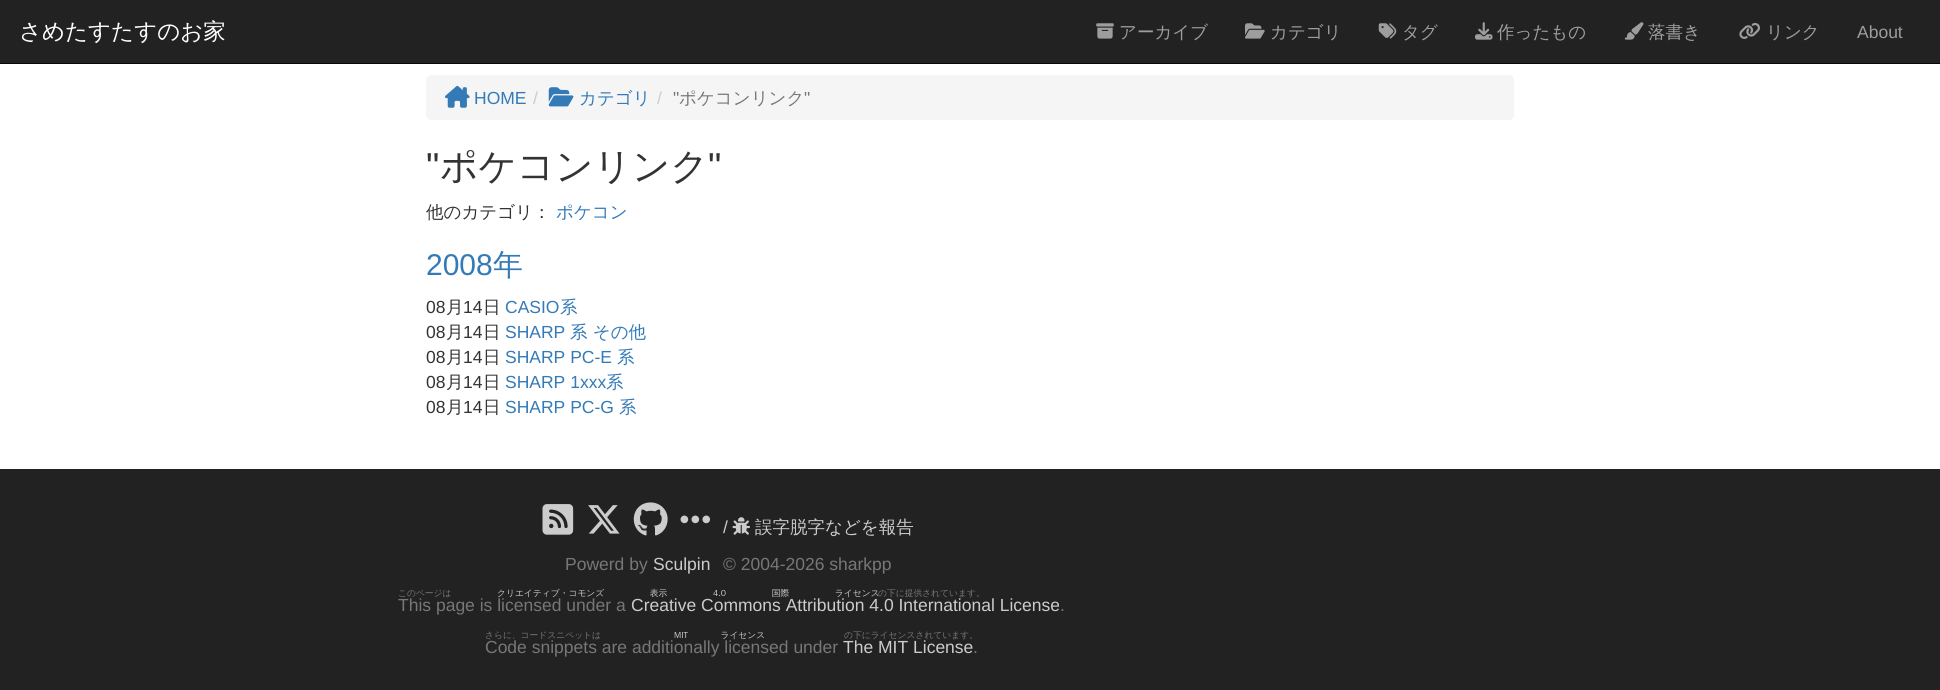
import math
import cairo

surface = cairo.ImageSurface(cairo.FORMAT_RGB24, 1940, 690)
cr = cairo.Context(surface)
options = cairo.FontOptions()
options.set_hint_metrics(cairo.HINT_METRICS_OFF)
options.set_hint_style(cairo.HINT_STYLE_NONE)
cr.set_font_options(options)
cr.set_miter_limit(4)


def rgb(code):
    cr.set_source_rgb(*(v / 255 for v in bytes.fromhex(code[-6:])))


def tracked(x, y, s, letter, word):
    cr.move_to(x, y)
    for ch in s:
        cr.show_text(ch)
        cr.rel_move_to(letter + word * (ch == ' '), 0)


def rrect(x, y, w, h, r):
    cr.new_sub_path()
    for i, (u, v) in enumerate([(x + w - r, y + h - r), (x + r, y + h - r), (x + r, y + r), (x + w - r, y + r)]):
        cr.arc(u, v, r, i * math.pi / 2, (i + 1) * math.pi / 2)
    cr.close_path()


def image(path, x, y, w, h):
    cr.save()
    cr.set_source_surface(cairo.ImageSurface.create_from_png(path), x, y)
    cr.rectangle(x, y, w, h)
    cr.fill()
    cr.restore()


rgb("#222222")
cr.paint()
rgb("#ffffff")
cr.rectangle(0, 64, 1940, 405)
cr.fill()
rgb("#080808")
cr.rectangle(0, 63, 1940, 1)
cr.fill()
image("img/1.png", 1096, 23, 18, 16)
image("img/2.png", 1245, 23, 20, 16)
image("img/3.png", 1378, 23, 19, 16)
image("img/4.png", 1475, 22, 18, 18)
image("img/5.png", 1624, 22, 20, 18)
image("img/6.png", 1739, 22, 21, 17)
rgb("#f5f5f5")
rrect(426, 75, 1088, 45, 5)
cr.fill()
image("img/7.png", 445, 85, 25, 23)
image("img/8.png", 548, 87, 26, 20)
image("img/9.png", 542, 504, 32, 31)
image("img/10.png", 588, 505, 32, 29)
image("img/11.png", 633, 502, 35, 34)
image("img/12.png", 680, 515, 31, 9)
image("img/13.png", 732, 517, 18, 18)
cr.select_font_face("WenQuanYi Zen Hei Medium")
cr.set_font_size(22.5)
rgb("#ffffff")
cr.move_to(19, 39)
cr.show_text("さめたすたすのお家")
cr.set_font_size(17.5)
rgb("#9d9d9d")
for x, y, s in [
    (1119, 38, "アーカイブ"),
    (1270, 38, "カテゴリ"),
    (1402, 38, "タグ"),
    (1497, 38, "作ったもの"),
    (1648, 38, "落書き"),
    (1766, 38, "リンク"),
]:
    cr.move_to(x, y)
    cr.show_text(s)
cr.select_font_face("Liberation Sans")
cr.move_to(1857, 38)
cr.show_text("About")
rgb("#337ab7")
cr.move_to(474, 104)
cr.show_text("HOME")
rgb("#cccccc")
cr.move_to(533, 104)
cr.show_text("/")
cr.select_font_face("WenQuanYi Zen Hei Medium")
rgb("#337ab7")
cr.move_to(579, 104)
cr.show_text("カテゴリ")
cr.select_font_face("Liberation Sans")
rgb("#cccccc")
cr.move_to(657, 104)
cr.show_text("/")
rgb("#777777")
cr.move_to(673, 104)
cr.show_text("\"")
cr.select_font_face("WenQuanYi Zen Hei Medium")
cr.move_to(679, 104)
cr.show_text("ポケコンリンク")
cr.select_font_face("Liberation Sans")
cr.move_to(804, 104)
cr.show_text("\"")
cr.set_font_size(37.5)
rgb("#333333")
cr.move_to(426, 179)
cr.show_text("\"")
cr.select_font_face("WenQuanYi Zen Hei Medium")
cr.move_to(440, 179)
cr.show_text("ポケコンリンク")
cr.select_font_face("Liberation Sans")
cr.move_to(708, 179)
cr.show_text("\"")
cr.select_font_face("WenQuanYi Zen Hei Medium")
cr.set_font_size(17.5)
cr.move_to(426, 218)
cr.show_text("他のカテゴリ：")
rgb("#337ab7")
cr.move_to(556, 218)
cr.show_text("ポケコン")
cr.select_font_face("Liberation Sans")
cr.set_font_size(30)
cr.move_to(426, 275)
cr.show_text("2008")
cr.select_font_face("WenQuanYi Zen Hei Medium")
cr.move_to(493, 275)
cr.show_text("年")
cr.select_font_face("Liberation Sans")
cr.set_font_size(17.5)
rgb("#333333")
cr.move_to(426, 313)
cr.show_text("08")
cr.select_font_face("WenQuanYi Zen Hei Medium")
cr.move_to(446, 313)
cr.show_text("月")
cr.select_font_face("Liberation Sans")
cr.move_to(463, 313)
cr.show_text("14")
cr.select_font_face("WenQuanYi Zen Hei Medium")
cr.move_to(483, 313)
cr.show_text("日")
cr.select_font_face("Liberation Sans")
rgb("#337ab7")
cr.move_to(505, 313)
cr.show_text("CASIO")
cr.select_font_face("WenQuanYi Zen Hei Medium")
cr.move_to(560, 313)
cr.show_text("系")
cr.select_font_face("Liberation Sans")
rgb("#333333")
cr.move_to(426, 338)
cr.show_text("08")
cr.select_font_face("WenQuanYi Zen Hei Medium")
cr.move_to(446, 338)
cr.show_text("月")
cr.select_font_face("Liberation Sans")
cr.move_to(463, 338)
cr.show_text("14")
cr.select_font_face("WenQuanYi Zen Hei Medium")
cr.move_to(483, 338)
cr.show_text("日")
cr.select_font_face("Liberation Sans")
rgb("#337ab7")
cr.move_to(505, 338)
cr.show_text("SHARP")
cr.select_font_face("WenQuanYi Zen Hei Medium")
cr.move_to(570, 338)
cr.show_text("系 その他")
cr.select_font_face("Liberation Sans")
rgb("#333333")
cr.move_to(426, 363)
cr.show_text("08")
cr.select_font_face("WenQuanYi Zen Hei Medium")
cr.move_to(446, 363)
cr.show_text("月")
cr.select_font_face("Liberation Sans")
cr.move_to(463, 363)
cr.show_text("14")
cr.select_font_face("WenQuanYi Zen Hei Medium")
cr.move_to(483, 363)
cr.show_text("日")
cr.select_font_face("Liberation Sans")
rgb("#337ab7")
cr.move_to(505, 363)
cr.show_text("SHARP PC-E")
cr.select_font_face("WenQuanYi Zen Hei Medium")
cr.move_to(617, 363)
cr.show_text("系")
cr.select_font_face("Liberation Sans")
rgb("#333333")
cr.move_to(426, 388)
cr.show_text("08")
cr.select_font_face("WenQuanYi Zen Hei Medium")
cr.move_to(446, 388)
cr.show_text("月")
cr.select_font_face("Liberation Sans")
cr.move_to(463, 388)
cr.show_text("14")
cr.select_font_face("WenQuanYi Zen Hei Medium")
cr.move_to(483, 388)
cr.show_text("日")
cr.select_font_face("Liberation Sans")
rgb("#337ab7")
cr.move_to(505, 388)
cr.show_text("SHARP 1xxx")
cr.select_font_face("WenQuanYi Zen Hei Medium")
cr.move_to(606, 388)
cr.show_text("系")
cr.select_font_face("Liberation Sans")
rgb("#333333")
cr.move_to(426, 413)
cr.show_text("08")
cr.select_font_face("WenQuanYi Zen Hei Medium")
cr.move_to(446, 413)
cr.show_text("月")
cr.select_font_face("Liberation Sans")
cr.move_to(463, 413)
cr.show_text("14")
cr.select_font_face("WenQuanYi Zen Hei Medium")
cr.move_to(483, 413)
cr.show_text("日")
cr.select_font_face("Liberation Sans")
rgb("#337ab7")
cr.move_to(505, 413)
cr.show_text("SHARP PC-G")
cr.select_font_face("WenQuanYi Zen Hei Medium")
cr.move_to(619, 413)
cr.show_text("系")
cr.select_font_face("Liberation Sans")
rgb("#cccccc")
cr.move_to(723, 533)
cr.show_text("/")
cr.select_font_face("WenQuanYi Zen Hei Medium")
cr.move_to(755, 533)
cr.show_text("誤字脱字などを報告")
cr.select_font_face("Liberation Sans")
rgb("#777777")
cr.move_to(565, 570)
cr.show_text("Powerd by")
rgb("#cccccc")
cr.move_to(653, 570)
cr.show_text("Sculpin")
rgb("#777777")
cr.move_to(723, 570)
cr.show_text("© 2004-2026 sharkpp")
cr.select_font_face("WenQuanYi Zen Hei Medium")
cr.set_font_size(8.75)
cr.move_to(398, 596)
cr.show_text("このページは")
rgb("#cccccc")
tracked(497, 596, "クリエイティブ・コモンズ 表示 4.0 国際 ライセンス", 0, 43)
rgb("#777777")
cr.move_to(878, 596)
cr.show_text("の下に提供されています。")
cr.select_font_face("Liberation Sans")
cr.set_font_size(17.5)
cr.move_to(398, 611)
cr.show_text("This page is licensed under a")
rgb("#cccccc")
cr.move_to(631, 611)
cr.show_text("Creative Commons Attribution 4.0 International License")
rgb("#777777")
cr.move_to(1060, 611)
cr.show_text(".")
cr.select_font_face("WenQuanYi Zen Hei Medium")
cr.set_font_size(8.75)
cr.move_to(485, 638)
cr.show_text("さらに、コードスニペットは")
rgb("#cccccc")
tracked(674, 638, "MIT ライセンス", 0, 30)
rgb("#777777")
cr.move_to(844, 638)
cr.show_text("の下にライセンスされています。")
cr.select_font_face("Liberation Sans")
cr.set_font_size(17.5)
cr.move_to(485, 653)
cr.show_text("Code snippets are additionally licensed under")
rgb("#cccccc")
cr.move_to(843, 653)
cr.show_text("The MIT License")
rgb("#777777")
cr.move_to(973, 653)
cr.show_text(".")
surface.write_to_png("page.png")
